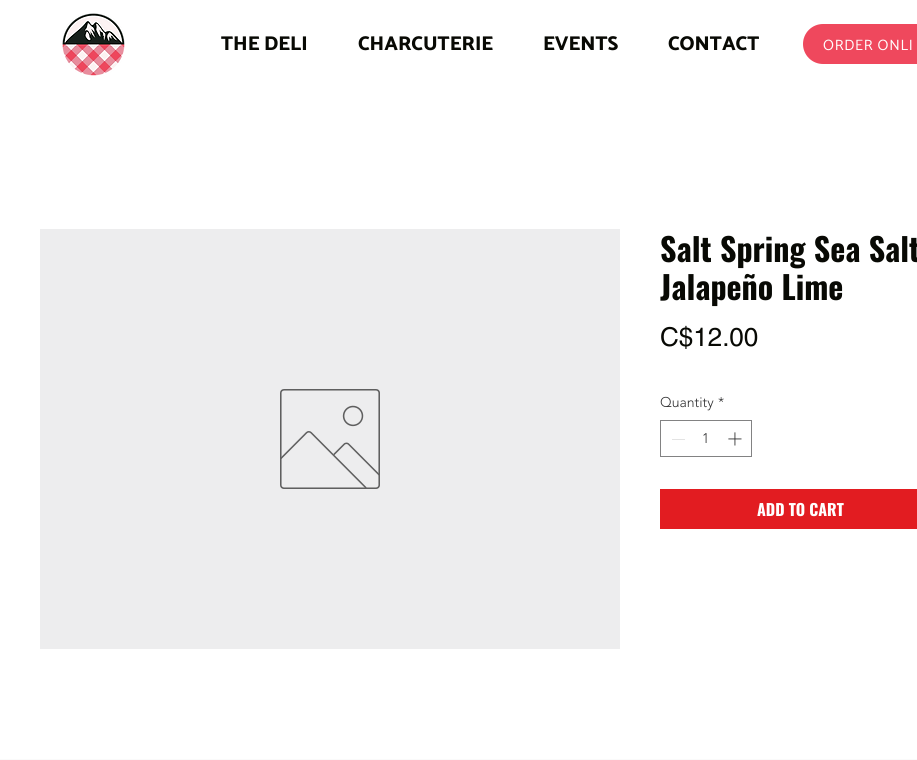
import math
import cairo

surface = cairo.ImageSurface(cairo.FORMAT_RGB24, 917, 760)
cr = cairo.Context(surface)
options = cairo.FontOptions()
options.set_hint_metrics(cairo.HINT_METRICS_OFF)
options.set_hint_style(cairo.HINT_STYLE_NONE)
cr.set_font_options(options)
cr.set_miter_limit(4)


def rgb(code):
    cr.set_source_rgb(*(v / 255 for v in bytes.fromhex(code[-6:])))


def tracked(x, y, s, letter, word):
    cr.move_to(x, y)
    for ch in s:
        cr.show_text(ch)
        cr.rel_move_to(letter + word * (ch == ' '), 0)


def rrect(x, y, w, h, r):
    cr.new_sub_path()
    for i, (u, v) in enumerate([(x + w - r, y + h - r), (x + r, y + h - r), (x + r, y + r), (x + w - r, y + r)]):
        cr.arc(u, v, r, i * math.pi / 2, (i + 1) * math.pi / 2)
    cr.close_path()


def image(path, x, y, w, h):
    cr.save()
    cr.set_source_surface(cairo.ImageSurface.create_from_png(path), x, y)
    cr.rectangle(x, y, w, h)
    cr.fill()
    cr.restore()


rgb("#ffffff")
cr.paint()
image("img/1.png", 62, 13, 63, 63)
rgb("#ef485d")
rrect(803, 24, 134, 40, 20)
cr.fill()
rgb("#ededee")
cr.rectangle(40, 229, 580, 420)
cr.fill()
image("img/2.png", 280, 389, 100, 100)
cr.rectangle(660.5, 420.5, 91, 36)
rgb("#828283")
cr.set_line_width(1)
cr.stroke()
rgb("#e3e3e3")
cr.rectangle(672, 439, 13, 1)
cr.fill()
image("img/3.png", 728, 432, 14, 14)
rgb("#e21c21")
cr.rectangle(660, 489, 257, 40)
cr.fill()
rgb("#fafafa")
cr.rectangle(0, 759, 917, 1)
cr.fill()
cr.select_font_face("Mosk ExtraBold")
cr.set_font_size(20)
rgb("#080904")
for x, y, s in [
    (221, 50, "THE DELI"),
    (358, 50, "CHARCUTERIE"),
    (543, 50, "EVENTS"),
    (668, 50, "CONTACT"),
]:
    cr.move_to(x, y)
    cr.show_text(s)
cr.select_font_face("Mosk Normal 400")
cr.set_font_size(15)
rgb("#ffffff")
tracked(823, 50, "ORDER ONLI", 0.75, 0)
cr.select_font_face("Oswald", cairo.FONT_SLANT_NORMAL, cairo.FONT_WEIGHT_BOLD)
cr.set_font_size(32)
rgb("#080904")
cr.move_to(660, 262)
cr.show_text("Salt Spring Sea Salt")
cr.move_to(660, 300)
cr.show_text("Jalapeño Lime")
cr.select_font_face("helvetica")
cr.set_font_size(26)
cr.move_to(660, 346)
cr.show_text("C$12.00")
cr.select_font_face("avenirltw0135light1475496 Light")
cr.set_font_size(14)
rgb("#2f2f30")
for x, y, s in [
    (660, 407, "Quantity"),
    (718, 407, "*"),
    (702, 443, "1"),
]:
    cr.move_to(x, y)
    cr.show_text(s)
cr.select_font_face("Oswald", cairo.FONT_SLANT_NORMAL, cairo.FONT_WEIGHT_BOLD)
cr.set_font_size(16)
rgb("#ffffff")
cr.move_to(757, 516)
cr.show_text("ADD TO CART")
surface.write_to_png("page.png")
